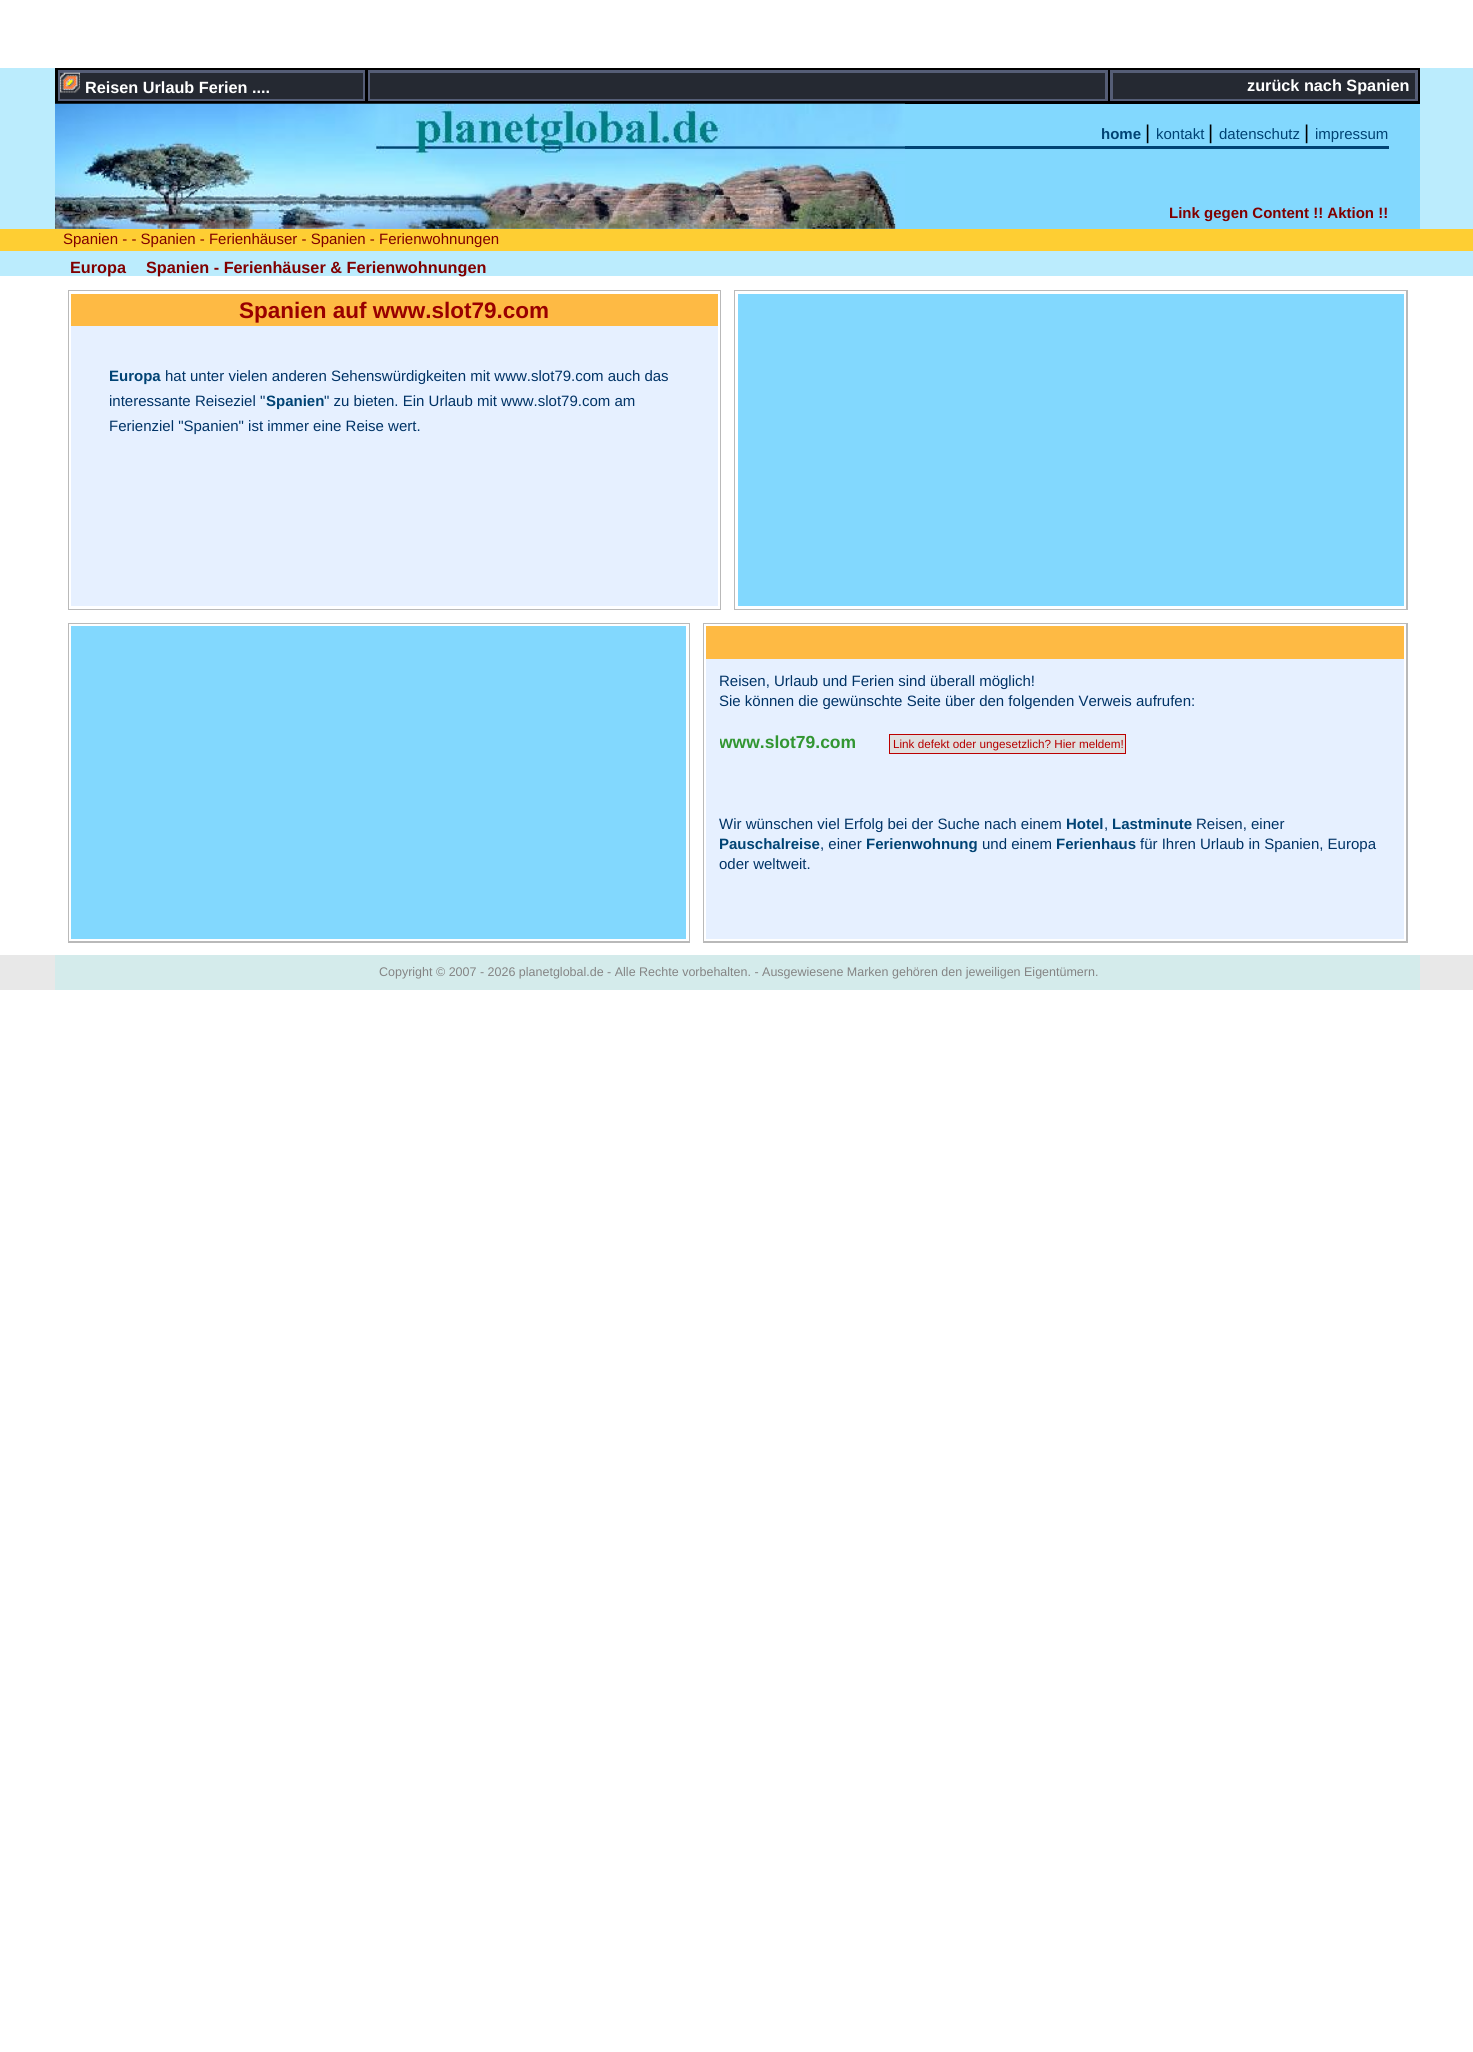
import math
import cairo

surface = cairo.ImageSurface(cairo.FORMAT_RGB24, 1473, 2052)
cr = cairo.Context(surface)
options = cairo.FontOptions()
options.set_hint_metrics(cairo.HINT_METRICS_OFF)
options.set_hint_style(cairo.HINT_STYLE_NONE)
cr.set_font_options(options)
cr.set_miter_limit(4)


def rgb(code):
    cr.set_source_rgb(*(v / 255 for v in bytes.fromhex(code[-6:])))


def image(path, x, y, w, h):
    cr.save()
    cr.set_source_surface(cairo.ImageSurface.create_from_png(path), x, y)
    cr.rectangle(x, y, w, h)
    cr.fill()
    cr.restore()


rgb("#ffffff")
cr.paint()
for x, y, w, h, color in [
    (0, 68, 1473, 161, "#bbecfd"),
    (55, 68, 1365, 36, "#000000"),
    (58, 70, 307, 31, "#555d76"),
    (60, 73, 303, 26, "#252932"),
]:
    rgb(color)
    cr.rectangle(x, y, w, h)
    cr.fill()
image("img/1.png", 60, 72, 20, 21)
for x, y, w, h, color in [
    (368, 70, 740, 31, "#555d76"),
    (370, 73, 735, 26, "#252932"),
    (1110, 70, 308, 31, "#555d76"),
    (1113, 73, 302, 26, "#252932"),
    (55, 104, 1365, 125, "#82d8fe"),
]:
    rgb(color)
    cr.rectangle(x, y, w, h)
    cr.fill()
image("img/2.png", 55, 103, 850, 126)
for x, y, w, h, color in [
    (905, 146, 484, 3, "#004374"),
    (0, 229, 1473, 22, "#fece33"),
    (0, 251, 1473, 25, "#bbecfd"),
    (68, 290, 653, 320, "#b9b9b9"),
    (69, 291, 651, 318, "#ffffff"),
    (71, 326, 647, 280, "#e6f0ff"),
    (71, 294, 647, 32, "#feba44"),
    (734, 290, 674, 320, "#b9b9b9"),
    (735, 291, 671, 318, "#ffffff"),
    (738, 294, 666, 312, "#82d8fe"),
    (68, 623, 622, 320, "#b9b9b9"),
    (69, 624, 620, 317, "#ffffff"),
    (71, 626, 615, 313, "#82d8fe"),
    (703, 623, 705, 320, "#b9b9b9"),
    (704, 624, 702, 317, "#ffffff"),
    (706, 659, 698, 280, "#e6f0ff"),
    (706, 626, 698, 33, "#feba44"),
]:
    rgb(color)
    cr.rectangle(x, y, w, h)
    cr.fill()
rgb("#e0e0e0")
cr.rectangle(889.5, 734.5, 236, 19)
cr.fill_preserve()
rgb("#bc0000")
cr.set_line_width(1)
cr.stroke()
rgb("#e8e8e8")
cr.rectangle(0, 955, 1473, 35)
cr.fill()
rgb("#d4ebeb")
cr.rectangle(55, 955, 1365, 35)
cr.fill()
cr.select_font_face("Liberation Sans", cairo.FONT_SLANT_NORMAL, cairo.FONT_WEIGHT_BOLD)
cr.set_font_size(16.25)
rgb("#ffffff")
cr.move_to(85, 93)
cr.show_text("Reisen Urlaub Ferien ....")
cr.move_to(1247, 91)
cr.show_text("zurück nach Spanien")
cr.set_font_size(15)
rgb("#004374")
cr.move_to(1101, 139)
cr.show_text("home")
cr.select_font_face("Liberation Sans")
cr.set_font_size(20)
rgb("#000000")
cr.move_to(1145, 139)
cr.show_text("|")
cr.set_font_size(15)
rgb("#004374")
cr.move_to(1156, 139)
cr.show_text("kontakt")
cr.set_font_size(20)
rgb("#000000")
cr.move_to(1208, 139)
cr.show_text("|")
cr.set_font_size(15)
rgb("#004374")
cr.move_to(1219, 139)
cr.show_text("datenschutz")
cr.set_font_size(20)
rgb("#000000")
cr.move_to(1304, 139)
cr.show_text("|")
cr.set_font_size(15)
rgb("#004374")
cr.move_to(1315, 139)
cr.show_text("impressum")
cr.select_font_face("Liberation Sans", cairo.FONT_SLANT_NORMAL, cairo.FONT_WEIGHT_BOLD)
rgb("#800000")
cr.move_to(1169, 218)
cr.show_text("Link gegen Content !! Aktion !!")
cr.select_font_face("Liberation Sans")
cr.move_to(63, 244)
cr.show_text("Spanien - - Spanien - Ferienhäuser - Spanien - Ferienwohnungen")
cr.select_font_face("Liberation Sans", cairo.FONT_SLANT_NORMAL, cairo.FONT_WEIGHT_BOLD)
cr.set_font_size(16.25)
cr.move_to(70, 273)
cr.show_text("Europa")
cr.move_to(146, 273)
cr.show_text("Spanien - Ferienhäuser & Ferienwohnungen")
cr.set_font_size(22.5)
rgb("#990000")
cr.move_to(239, 318)
cr.show_text("Spanien auf www.slot79.com")
cr.set_font_size(15)
rgb("#004374")
cr.move_to(109, 381)
cr.show_text("Europa")
cr.select_font_face("Liberation Sans")
rgb("#003366")
cr.move_to(165, 381)
cr.show_text("hat unter vielen anderen Sehenswürdigkeiten mit www.slot79.com auch das")
cr.move_to(109, 406)
cr.show_text("interessante Reiseziel \"")
cr.select_font_face("Liberation Sans", cairo.FONT_SLANT_NORMAL, cairo.FONT_WEIGHT_BOLD)
rgb("#004374")
cr.move_to(266, 406)
cr.show_text("Spanien")
cr.select_font_face("Liberation Sans")
rgb("#003366")
for x, y, s in [
    (324, 406, "\" zu bieten. Ein Urlaub mit www.slot79.com am"),
    (109, 431, "Ferienziel \"Spanien\" ist immer eine Reise wert."),
    (719, 686, "Reisen, Urlaub und Ferien sind überall möglich!"),
    (719, 706, "Sie können die gewünschte Seite über den folgenden Verweis aufrufen:"),
]:
    cr.move_to(x, y)
    cr.show_text(s)
cr.save()
cr.rectangle(720, 671, 671, 203)
cr.clip()
cr.select_font_face("Liberation Sans", cairo.FONT_SLANT_NORMAL, cairo.FONT_WEIGHT_BOLD)
cr.set_font_size(17.5)
rgb("#329632")
cr.move_to(719, 748)
cr.show_text("www.slot79.com")
cr.restore()
cr.set_font_size(11.7)
rgb("#b60000")
cr.move_to(893, 748)
cr.show_text("Link defekt oder ungesetzlich? Hier meldem!")
cr.set_font_size(15)
rgb("#003366")
cr.move_to(719, 829)
cr.show_text("Wir wünschen viel Erfolg bei der Suche nach einem")
cr.select_font_face("Liberation Sans", cairo.FONT_SLANT_NORMAL, cairo.FONT_WEIGHT_BOLD)
rgb("#004374")
cr.move_to(1066, 829)
cr.show_text("Hotel")
cr.select_font_face("Liberation Sans")
rgb("#003366")
cr.move_to(1104, 829)
cr.show_text(",")
cr.select_font_face("Liberation Sans", cairo.FONT_SLANT_NORMAL, cairo.FONT_WEIGHT_BOLD)
rgb("#004374")
cr.move_to(1112, 829)
cr.show_text("Lastminute")
cr.select_font_face("Liberation Sans")
rgb("#003366")
cr.move_to(1196, 829)
cr.show_text("Reisen, einer")
cr.select_font_face("Liberation Sans", cairo.FONT_SLANT_NORMAL, cairo.FONT_WEIGHT_BOLD)
rgb("#004374")
cr.move_to(719, 849)
cr.show_text("Pauschalreise")
cr.select_font_face("Liberation Sans")
rgb("#003366")
cr.move_to(820, 849)
cr.show_text(", einer")
cr.select_font_face("Liberation Sans", cairo.FONT_SLANT_NORMAL, cairo.FONT_WEIGHT_BOLD)
rgb("#004374")
cr.move_to(866, 849)
cr.show_text("Ferienwohnung")
cr.select_font_face("Liberation Sans")
rgb("#003366")
cr.move_to(982, 849)
cr.show_text("und einem")
cr.select_font_face("Liberation Sans", cairo.FONT_SLANT_NORMAL, cairo.FONT_WEIGHT_BOLD)
rgb("#004374")
cr.move_to(1056, 849)
cr.show_text("Ferienhaus")
cr.select_font_face("Liberation Sans")
rgb("#003366")
cr.move_to(1140, 849)
cr.show_text("für Ihren Urlaub in Spanien, Europa")
cr.move_to(719, 869)
cr.show_text("oder weltweit.")
cr.set_font_size(12.5)
rgb("#848484")
cr.move_to(379, 976)
cr.show_text("Copyright © 2007 - 2026 planetglobal.de - Alle Rechte vorbehalten. - Ausgewiesene Marken gehören den jeweiligen Eigentümern.")
surface.write_to_png("page.png")
